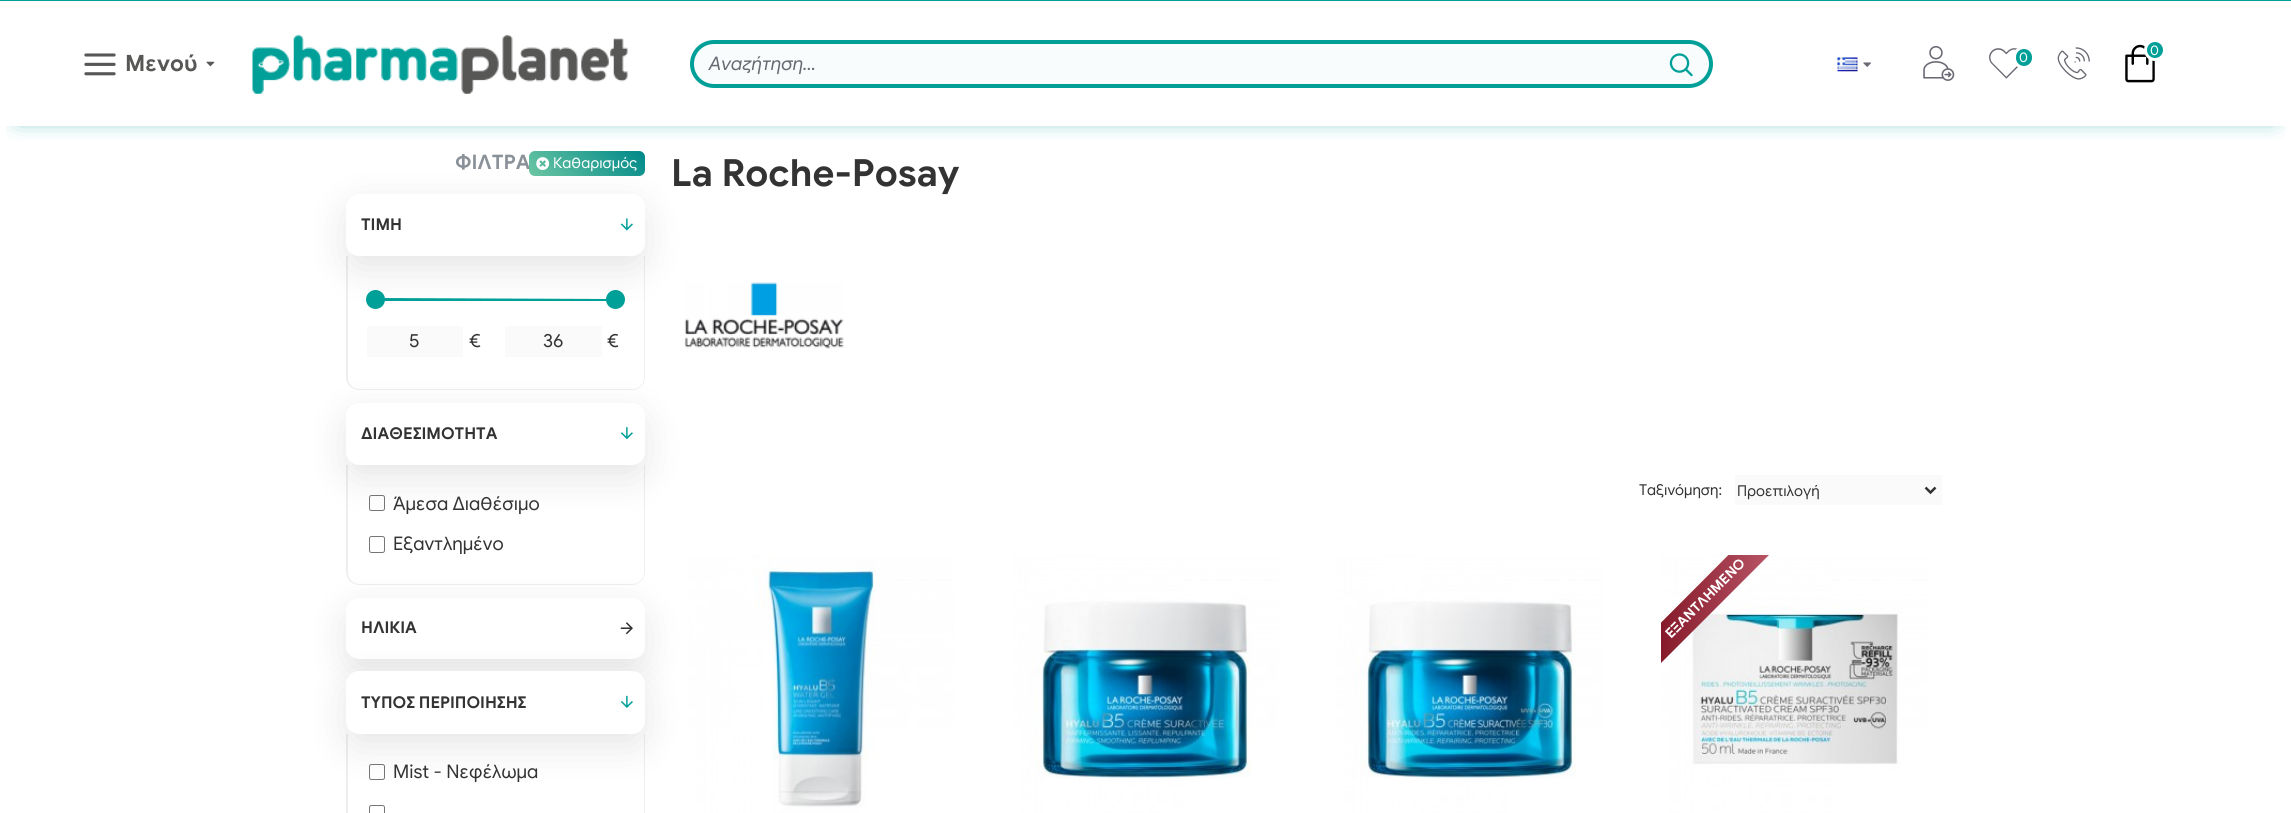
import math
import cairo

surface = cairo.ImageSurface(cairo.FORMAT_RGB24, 2291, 813)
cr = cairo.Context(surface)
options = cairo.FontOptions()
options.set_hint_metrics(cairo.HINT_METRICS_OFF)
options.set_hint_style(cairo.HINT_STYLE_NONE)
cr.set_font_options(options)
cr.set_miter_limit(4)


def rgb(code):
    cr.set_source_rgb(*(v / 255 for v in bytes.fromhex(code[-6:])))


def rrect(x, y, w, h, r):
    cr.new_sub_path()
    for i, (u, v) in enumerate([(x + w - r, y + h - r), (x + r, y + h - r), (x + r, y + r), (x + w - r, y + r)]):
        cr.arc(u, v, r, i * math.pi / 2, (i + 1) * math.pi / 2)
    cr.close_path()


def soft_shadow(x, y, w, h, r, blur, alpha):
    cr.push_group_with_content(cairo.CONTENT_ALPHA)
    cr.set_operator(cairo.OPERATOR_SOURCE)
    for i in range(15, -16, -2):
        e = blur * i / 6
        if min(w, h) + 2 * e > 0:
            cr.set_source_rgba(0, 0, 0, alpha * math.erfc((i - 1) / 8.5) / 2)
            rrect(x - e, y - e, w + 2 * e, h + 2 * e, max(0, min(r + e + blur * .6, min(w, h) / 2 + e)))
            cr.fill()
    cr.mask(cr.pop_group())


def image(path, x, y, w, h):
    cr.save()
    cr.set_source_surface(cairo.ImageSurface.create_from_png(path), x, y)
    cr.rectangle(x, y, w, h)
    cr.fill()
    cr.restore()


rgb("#ffffff")
cr.paint()
rgb("#eeeeee")
cr.set_fill_rule(cairo.FILL_RULE_EVEN_ODD)
cr.new_path()
cr.move_to(346, 256)
cr.line_to(645, 256)
cr.line_to(645, 378)
cr.curve_to(645, 384, 639, 390, 632, 390)
cr.line_to(359, 390)
cr.curve_to(352, 390, 346, 384, 346, 378)
cr.close_path()
cr.move_to(348, 256)
cr.line_to(644, 256)
cr.line_to(644, 378)
cr.curve_to(644, 384, 639, 389, 632, 389)
cr.line_to(359, 389)
cr.curve_to(353, 389, 348, 384, 348, 378)
cr.close_path()
cr.fill()
rgb("#00a099")
cr.set_fill_rule(cairo.FILL_RULE_WINDING)
cr.new_path()
cr.move_to(381, 298)
cr.line_to(613, 299)
cr.curve_to(619, 300, 610, 301, 609, 301)
cr.line_to(381, 301)
cr.line_to(376, 300)
cr.curve_to(372, 299, 381, 298, 381, 298)
cr.close_path()
cr.fill()
cr.arc(375.5, 299.5, 9.5, 0, 2 * math.pi)
cr.fill()
cr.arc(615.5, 299.5, 9.5, 0, 2 * math.pi)
cr.fill()
rgb("#fafafa")
rrect(366.5, 325.5, 97, 32, 2)
cr.fill_preserve()
rgb("#ffffff")
cr.set_line_width(1)
cr.stroke()
rgb("#fafafa")
rrect(504.5, 325.5, 98, 32, 2)
cr.fill_preserve()
rgb("#ffffff")
cr.stroke()
rgb("#eeeeee")
cr.set_fill_rule(cairo.FILL_RULE_EVEN_ODD)
cr.new_path()
cr.move_to(346, 465)
cr.line_to(645, 465)
cr.line_to(645, 572)
cr.curve_to(645, 579, 639, 585, 632, 585)
cr.line_to(359, 585)
cr.curve_to(352, 585, 346, 579, 346, 572)
cr.close_path()
cr.move_to(348, 465)
cr.line_to(644, 465)
cr.line_to(644, 572)
cr.curve_to(644, 579, 639, 584, 632, 584)
cr.line_to(359, 584)
cr.curve_to(353, 584, 348, 579, 348, 572)
cr.close_path()
cr.fill()
rrect(369.5, 495.5, 15, 15, 2)
rgb("#767676")
cr.stroke()
rgb("#000000")
soft_shadow(346, 415, 299, 63, 13, 19, 0.1)
rgb("#ffffff")
rrect(346, 403, 299, 62, 13)
cr.fill()
image("img/13.png", 620, 427, 13, 13)
rrect(369.5, 536.5, 15, 16, 2)
rgb("#767676")
cr.stroke()
rgb("#000000")
soft_shadow(346, 610, 299, 61, 13, 19, 0.1)
rgb("#ffffff")
rrect(346, 598, 299, 61, 13)
cr.fill()
image("img/14.png", 620, 622, 13, 13)
rgb("#eeeeee")
cr.new_path()
cr.move_to(346, 734)
cr.line_to(645, 734)
cr.line_to(645, 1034)
cr.curve_to(645, 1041, 639, 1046, 632, 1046)
cr.line_to(359, 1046)
cr.curve_to(352, 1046, 346, 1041, 346, 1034)
cr.close_path()
cr.move_to(348, 734)
cr.line_to(644, 734)
cr.line_to(644, 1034)
cr.curve_to(644, 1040, 639, 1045, 632, 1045)
cr.line_to(359, 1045)
cr.curve_to(353, 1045, 348, 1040, 348, 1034)
cr.close_path()
cr.fill()
rrect(369.5, 764.5, 15, 15, 2)
rgb("#767676")
cr.stroke()
rgb("#000000")
soft_shadow(346, 684, 299, 62, 13, 19, 0.1)
rgb("#ffffff")
rrect(346, 671, 299, 63, 13)
cr.fill()
image("img/15.png", 620, 695, 13, 13)
rrect(369.5, 805.5, 15, 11, 2)
rgb("#767676")
cr.stroke()
image("img/16.png", 684, 282, 160, 67)
rgb("#fafafa")
rrect(1731.5, 474.5, 211, 31, 2)
cr.fill_preserve()
rgb("#ffffff")
cr.stroke()
rrect(1626, 474, 109, 32, 4)
cr.fill()
cr.new_path()
cr.move_to(1925.5, 487.5)
cr.line_to(1930.5, 492.5)
cr.line_to(1935.5, 487.5)
rgb("#333333")
cr.set_line_width(2.5)
cr.stroke()
image("img/17.png", 688, 555, 266, 258)
image("img/18.png", 1011, 555, 268, 258)
image("img/19.png", 1336, 555, 268, 258)
image("img/20.png", 1661, 555, 268, 258)
cr.save()
cr.set_fill_rule(cairo.FILL_RULE_WINDING)
cr.rectangle(1661, 555, 268, 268)
cr.clip()
gradient = cairo.LinearGradient(1848, 598, 1563, 598)
gradient.add_color_stop_rgba(0, 0.859, 0.498, 0.557, 1)
gradient.add_color_stop_rgba(0.74, 0.482, 0.051, 0.118, 1)
cr.set_source(gradient)
cr.new_path()
cr.move_to(1563, 721)
cr.line_to(1828, 455)
cr.line_to(1848, 476)
cr.line_to(1583, 741)
cr.close_path()
cr.fill()
cr.restore()
cr.select_font_face("Google Sans", cairo.FONT_SLANT_NORMAL, cairo.FONT_WEIGHT_BOLD)
cr.set_font_size(20)
rgb("#8b9198")
cr.move_to(455, 169)
cr.show_text("ΦΙΛΤΡΑ")
gradient = cairo.LinearGradient(552, 199, 622, 128)
gradient.add_color_stop_rgba(0.01, 0.42, 0.776, 0.639, 1)
gradient.add_color_stop_rgba(0.98, 0, 0.537, 0.537, 1)
cr.set_source(gradient)
rrect(529, 151, 116, 25, 6)
cr.fill()
cr.save()
cr.set_fill_rule(cairo.FILL_RULE_WINDING)
cr.rectangle(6, 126, 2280, 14)
cr.clip()
rgb("#00a09a")
soft_shadow(19, 25, 2254, 89, 0, 12.5, 1)
cr.restore()
image("img/2.png", 206, 61, 9, 6)
image("img/1.png", 84, 53, 32, 23)
cr.set_font_size(22.5)
rgb("#575756")
cr.move_to(125, 71)
cr.show_text("Μενού")
image("img/5.png", 2125, 44, 30, 39)
rgb("#00a099")
cr.arc(2155, 50, 9.5, 0, 2 * math.pi)
cr.fill_preserve()
rgb("#ffffff")
cr.set_line_width(3)
cr.stroke()
cr.select_font_face("Google Sans")
cr.set_font_size(13.75)
cr.move_to(2150, 55)
cr.show_text("0")
rrect(692, 42, 1019, 44, 22)
rgb("#00a099")
cr.set_line_width(4)
cr.stroke()
cr.set_source_rgba(0, 0.627, 0.6, 0.03)
cr.rectangle(1653, 44, 56, 40)
cr.fill()
image("img/4.png", 1669, 53, 24, 24)
cr.rectangle(694, 44, 959, 40)
cr.fill()
cr.select_font_face("Google Sans", cairo.FONT_SLANT_ITALIC)
cr.set_font_size(18.75)
rgb("#696973")
cr.move_to(709, 70)
cr.show_text("Αναζήτηση...")
image("img/10.png", 2057, 47, 33, 33)
image("img/9.png", 1989, 48, 29, 31)
rgb("#00a099")
rrect(2014.5, 47.5, 19, 20, 9.5)
cr.fill_preserve()
rgb("#ffffff")
cr.set_line_width(3)
cr.stroke()
cr.select_font_face("Google Sans")
cr.set_font_size(13.75)
cr.move_to(2019, 62)
cr.show_text("0")
image("img/8.png", 1923, 46, 32, 35)
image("img/7.png", 1863, 62, 8, 5)
image("img/6.png", 1837, 57, 21, 15)
image("img/3.png", 252, 34, 376, 60)
rgb("#00a099")
cr.rectangle(0, 0, 2291, 1)
cr.fill()
image("img/11.png", 536, 157, 14, 13)
cr.set_font_size(15)
rgb("#ffffff")
cr.move_to(553, 168)
cr.show_text("Καθαρισμός")
rgb("#000000")
soft_shadow(346, 206, 299, 63, 13, 19, 0.1)
rgb("#ffffff")
rrect(346, 194, 299, 62, 13)
cr.fill()
cr.select_font_face("Google Sans", cairo.FONT_SLANT_NORMAL, cairo.FONT_WEIGHT_BOLD)
cr.set_font_size(16.25)
rgb("#333333")
cr.move_to(361, 230)
cr.show_text("ΤΙΜΗ")
image("img/12.png", 620, 218, 13, 13)
cr.select_font_face("Google Sans")
cr.set_font_size(18.75)
for x, y, s in [
    (409, 347, "5"),
    (469, 347, "€"),
    (543, 347, "36"),
    (607, 347, "€"),
]:
    cr.move_to(x, y)
    cr.show_text(s)
cr.select_font_face("Google Sans", cairo.FONT_SLANT_NORMAL, cairo.FONT_WEIGHT_BOLD)
cr.set_font_size(16.25)
cr.move_to(361, 439)
cr.show_text("ΔΙΑΘΕΣΙΜΟΤΗΤΑ")
cr.select_font_face("Google Sans")
cr.set_font_size(18.75)
cr.move_to(393, 510)
cr.show_text("Άμεσα Διαθέσιμο")
cr.move_to(393, 550)
cr.show_text("Εξαντλημένο")
cr.select_font_face("Google Sans", cairo.FONT_SLANT_NORMAL, cairo.FONT_WEIGHT_BOLD)
cr.set_font_size(16.25)
cr.move_to(361, 633)
cr.show_text("ΗΛΙΚΙΑ")
cr.move_to(361, 708)
cr.show_text("ΤΥΠΟΣ ΠΕΡΙΠΟΙΗΣΗΣ")
cr.select_font_face("Google Sans")
cr.set_font_size(18.75)
cr.move_to(393, 778)
cr.show_text("Mist - Νεφέλωμα")
cr.select_font_face("Google Sans", cairo.FONT_SLANT_NORMAL, cairo.FONT_WEIGHT_BOLD)
cr.set_font_size(37.5)
cr.move_to(671, 186)
cr.show_text("La Roche-Posay")
cr.select_font_face("Google Sans")
cr.set_font_size(15)
cr.move_to(1639, 495)
cr.show_text("Ταξινόμηση:")
cr.move_to(1737, 496)
cr.show_text("Προεπιλογή")
cr.select_font_face("Google Sans", cairo.FONT_SLANT_NORMAL, cairo.FONT_WEIGHT_BOLD)
cr.set_font_size(13.75)
rgb("#ffffff")
cr.save()
cr.translate(1671, 639)
cr.rotate(-45 * math.pi / 180)
cr.move_to(0, 0)
cr.show_text("ΕΞΑΝΤΛΗΜΕΝΟ")
cr.restore()
surface.write_to_png("page.png")
